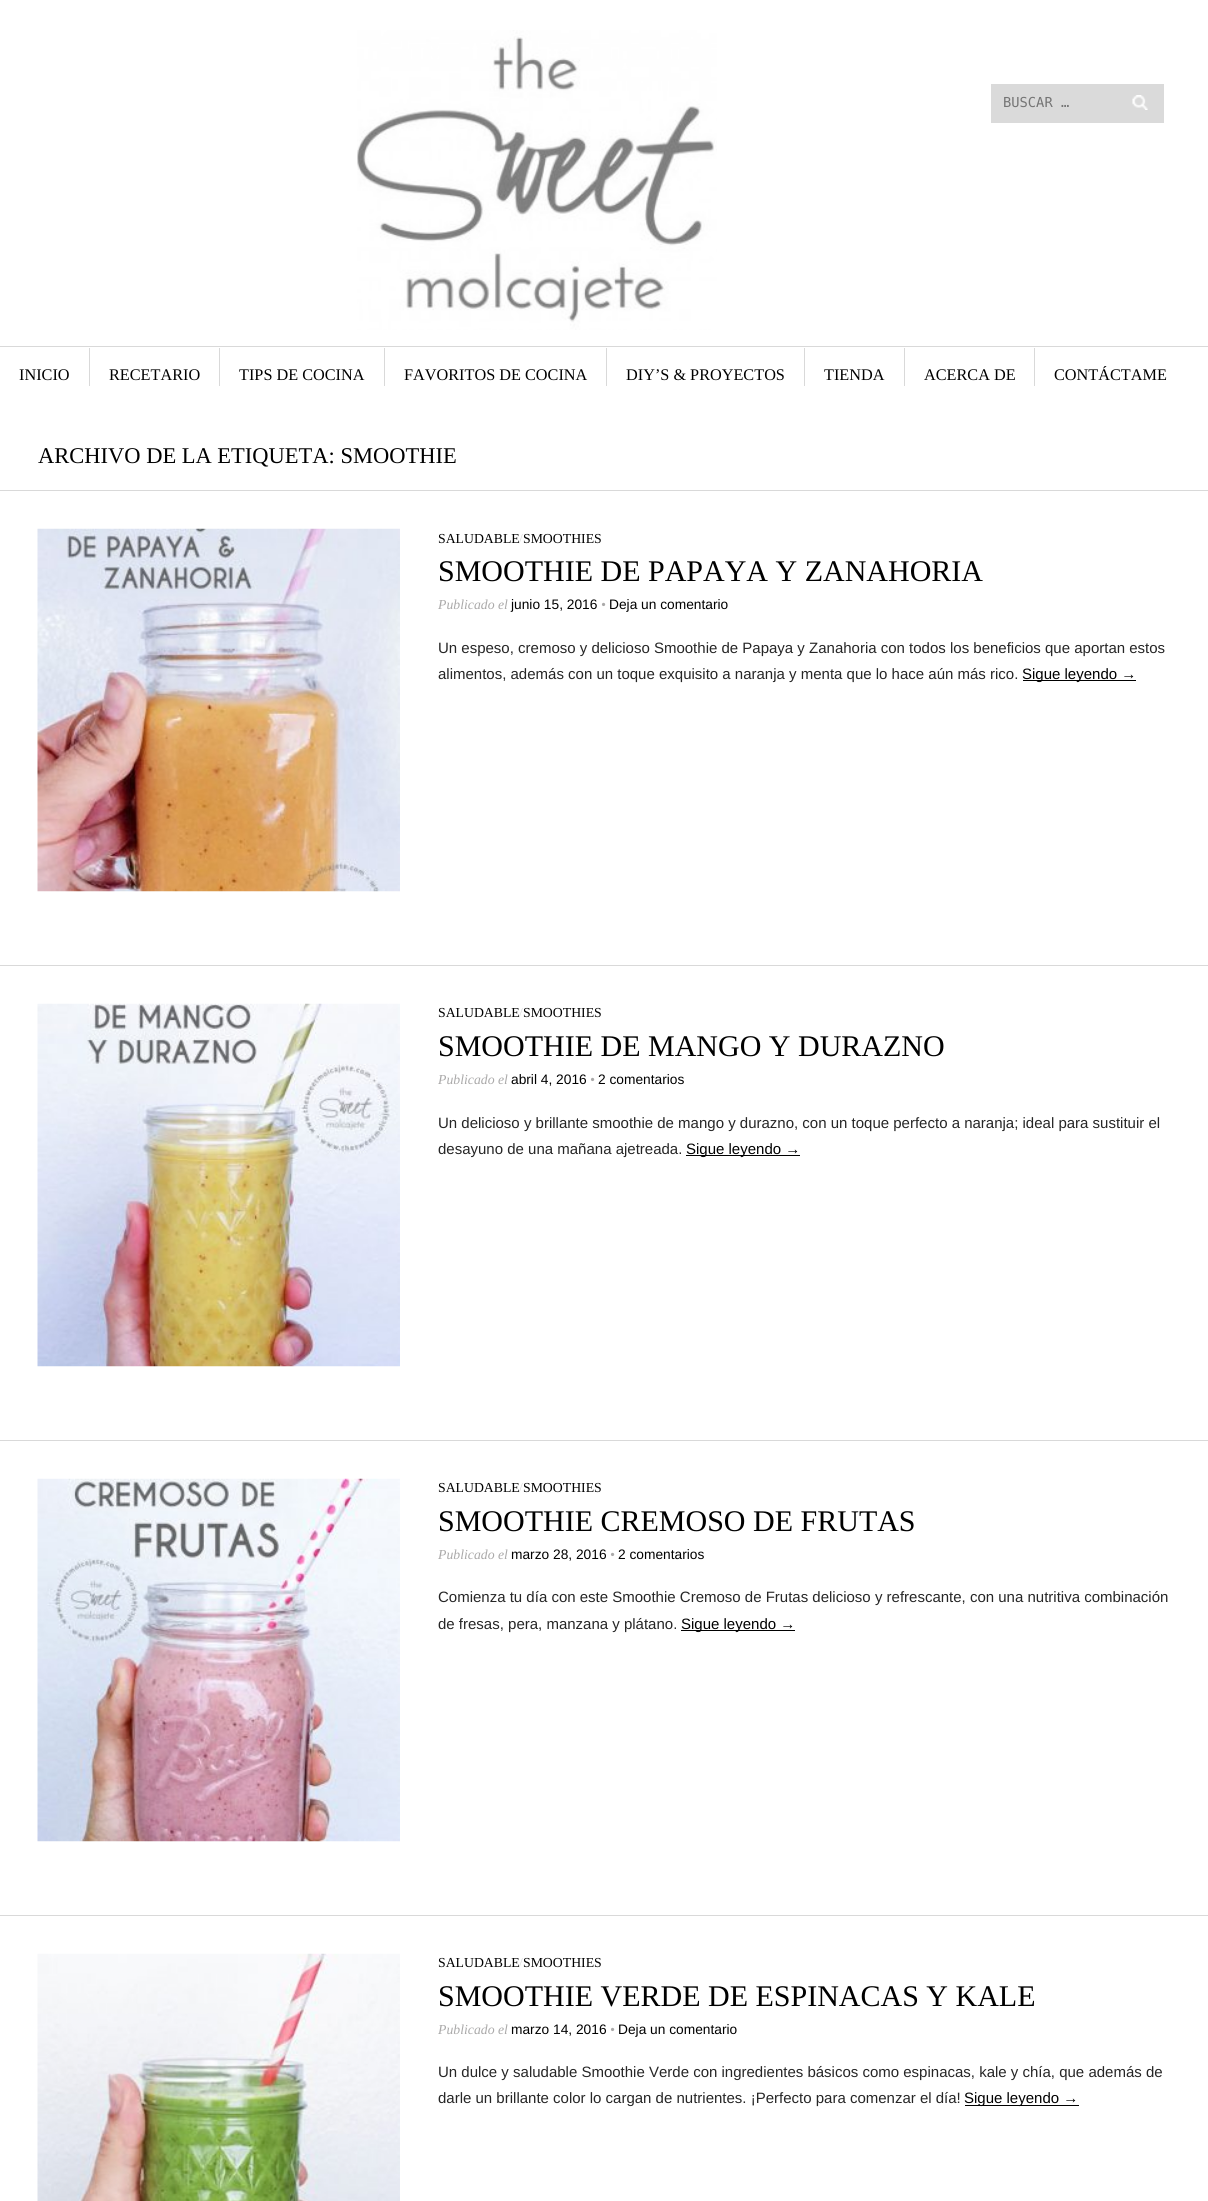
import math
import cairo

surface = cairo.ImageSurface(cairo.FORMAT_RGB24, 1208, 2201)
cr = cairo.Context(surface)
options = cairo.FontOptions()
options.set_hint_metrics(cairo.HINT_METRICS_OFF)
options.set_hint_style(cairo.HINT_STYLE_NONE)
cr.set_font_options(options)
cr.set_miter_limit(4)


def rgb(code):
    cr.set_source_rgb(*(v / 255 for v in bytes.fromhex(code[-6:])))


def image(path, x, y, w, h):
    cr.save()
    cr.set_source_surface(cairo.ImageSurface.create_from_png(path), x, y)
    cr.rectangle(x, y, w, h)
    cr.fill()
    cr.restore()


rgb("#ffffff")
cr.paint()
image("img/1.png", 357, 30, 360, 300)
rgb("#dadada")
cr.rectangle(991, 84, 173, 39)
cr.fill()
image("img/2.png", 1132, 95, 16, 15)
for x, y, w, h, color in [
    (0, 346, 1208, 1, "#d9d9d9"),
    (89, 348, 1, 38, "#d9d9d9"),
    (219, 348, 1, 38, "#d9d9d9"),
    (384, 348, 1, 38, "#d9d9d9"),
    (606, 348, 1, 38, "#d9d9d9"),
    (804, 348, 1, 38, "#d9d9d9"),
    (904, 348, 1, 38, "#d9d9d9"),
    (1034, 348, 1, 38, "#d9d9d9"),
    (0, 490, 1208, 1, "#d9d9d9"),
    (0, 965, 1208, 1, "#d9d9d9"),
]:
    rgb(color)
    cr.rectangle(x, y, w, h)
    cr.fill()
image("img/3.png", 37, 528, 363, 364)
rgb("#000000")
cr.rectangle(1023, 680, 113, 1)
cr.fill()
rgb("#d9d9d9")
cr.rectangle(0, 1440, 1208, 1)
cr.fill()
image("img/4.png", 37, 1003, 363, 364)
rgb("#000000")
cr.rectangle(686, 1155, 114, 1)
cr.fill()
rgb("#d9d9d9")
cr.rectangle(0, 1915, 1208, 1)
cr.fill()
image("img/5.png", 37, 1478, 363, 364)
rgb("#000000")
cr.rectangle(681, 1630, 114, 1)
cr.fill()
image("img/6.png", 37, 1953, 363, 248)
cr.rectangle(965, 2105, 114, 1)
cr.fill()
cr.select_font_face("DejaVu Sans Mono")
cr.set_font_size(13.75)
rgb("#757575")
cr.move_to(1003, 107)
cr.show_text("BUSCAR …")
cr.select_font_face("Liberation Serif")
cr.set_font_size(16.25)
rgb("#000000")
for x, y, s in [
    (19, 380, "INICIO"),
    (109, 380, "RECETARIO"),
    (239, 380, "TIPS DE COCINA"),
    (404, 380, "FAVORITOS DE COCINA"),
    (626, 380, "DIY’S & PROYECTOS"),
    (824, 380, "TIENDA"),
    (924, 380, "ACERCA DE"),
    (1054, 380, "CONTÁCTAME"),
]:
    cr.move_to(x, y)
    cr.show_text(s)
cr.set_font_size(22.5)
cr.move_to(38, 463)
cr.show_text("ARCHIVO DE LA ETIQUETA: SMOOTHIE")
cr.set_font_size(13.75)
cr.move_to(438, 543)
cr.show_text("SALUDABLE")
rgb("#d9d9d9")
cr.move_to(519, 543)
cr.show_text("/")
rgb("#000000")
cr.move_to(523, 543)
cr.show_text("SMOOTHIES")
cr.set_font_size(30)
cr.move_to(438, 581)
cr.show_text("SMOOTHIE DE PAPAYA Y ZANAHORIA")
cr.select_font_face("Liberation Serif", cairo.FONT_SLANT_ITALIC)
cr.set_font_size(13.75)
rgb("#aaa9a9")
cr.move_to(438, 609)
cr.show_text("Publicado el")
cr.select_font_face("Liberation Sans")
rgb("#000000")
cr.move_to(511, 609)
cr.show_text("junio 15, 2016")
cr.select_font_face("Liberation Serif", cairo.FONT_SLANT_ITALIC)
rgb("#aaa9a9")
cr.move_to(601, 609)
cr.show_text("•")
cr.select_font_face("Liberation Sans")
rgb("#000000")
cr.move_to(609, 609)
cr.show_text("Deja un comentario")
cr.set_font_size(15)
rgb("#262626")
cr.move_to(438, 653)
cr.show_text("Un espeso, cremoso y delicioso Smoothie de Papaya y Zanahoria con todos los beneficios que aportan estos")
cr.move_to(438, 679)
cr.show_text("alimentos, además con un toque exquisito a naranja y menta que lo hace aún más rico.")
rgb("#000000")
cr.move_to(1022, 679)
cr.show_text("Sigue leyendo →")
cr.select_font_face("Liberation Serif")
cr.set_font_size(13.75)
cr.move_to(438, 1017)
cr.show_text("SALUDABLE")
rgb("#d9d9d9")
cr.move_to(519, 1017)
cr.show_text("/")
rgb("#000000")
cr.move_to(523, 1017)
cr.show_text("SMOOTHIES")
cr.set_font_size(30)
cr.move_to(438, 1056)
cr.show_text("SMOOTHIE DE MANGO Y DURAZNO")
cr.select_font_face("Liberation Serif", cairo.FONT_SLANT_ITALIC)
cr.set_font_size(13.75)
rgb("#aaa9a9")
cr.move_to(438, 1084)
cr.show_text("Publicado el")
cr.select_font_face("Liberation Sans")
rgb("#000000")
cr.move_to(511, 1084)
cr.show_text("abril 4, 2016")
cr.select_font_face("Liberation Serif", cairo.FONT_SLANT_ITALIC)
rgb("#aaa9a9")
cr.move_to(590, 1084)
cr.show_text("•")
cr.select_font_face("Liberation Sans")
rgb("#000000")
cr.move_to(598, 1084)
cr.show_text("2 comentarios")
cr.set_font_size(15)
rgb("#262626")
cr.move_to(438, 1128)
cr.show_text("Un delicioso y brillante smoothie de mango y durazno, con un toque perfecto a naranja; ideal para sustituir el")
cr.move_to(438, 1154)
cr.show_text("desayuno de una mañana ajetreada.")
rgb("#000000")
cr.move_to(686, 1154)
cr.show_text("Sigue leyendo →")
cr.select_font_face("Liberation Serif")
cr.set_font_size(13.75)
cr.move_to(438, 1492)
cr.show_text("SALUDABLE")
rgb("#d9d9d9")
cr.move_to(519, 1492)
cr.show_text("/")
rgb("#000000")
cr.move_to(523, 1492)
cr.show_text("SMOOTHIES")
cr.set_font_size(30)
cr.move_to(438, 1531)
cr.show_text("SMOOTHIE CREMOSO DE FRUTAS")
cr.select_font_face("Liberation Serif", cairo.FONT_SLANT_ITALIC)
cr.set_font_size(13.75)
rgb("#aaa9a9")
cr.move_to(438, 1559)
cr.show_text("Publicado el")
cr.select_font_face("Liberation Sans")
rgb("#000000")
cr.move_to(511, 1559)
cr.show_text("marzo 28, 2016")
cr.select_font_face("Liberation Serif", cairo.FONT_SLANT_ITALIC)
rgb("#aaa9a9")
cr.move_to(610, 1559)
cr.show_text("•")
cr.select_font_face("Liberation Sans")
rgb("#000000")
cr.move_to(618, 1559)
cr.show_text("2 comentarios")
cr.set_font_size(15)
rgb("#262626")
cr.move_to(438, 1602)
cr.show_text("Comienza tu día con este Smoothie Cremoso de Frutas delicioso y refrescante, con una nutritiva combinación")
cr.move_to(438, 1629)
cr.show_text("de fresas, pera, manzana y plátano.")
rgb("#000000")
cr.move_to(681, 1629)
cr.show_text("Sigue leyendo →")
cr.select_font_face("Liberation Serif")
cr.set_font_size(13.75)
cr.move_to(438, 1967)
cr.show_text("SALUDABLE")
rgb("#d9d9d9")
cr.move_to(519, 1967)
cr.show_text("/")
rgb("#000000")
cr.move_to(523, 1967)
cr.show_text("SMOOTHIES")
cr.set_font_size(30)
cr.move_to(438, 2006)
cr.show_text("SMOOTHIE VERDE DE ESPINACAS Y KALE")
cr.select_font_face("Liberation Serif", cairo.FONT_SLANT_ITALIC)
cr.set_font_size(13.75)
rgb("#aaa9a9")
cr.move_to(438, 2034)
cr.show_text("Publicado el")
cr.select_font_face("Liberation Sans")
rgb("#000000")
cr.move_to(511, 2034)
cr.show_text("marzo 14, 2016")
cr.select_font_face("Liberation Serif", cairo.FONT_SLANT_ITALIC)
rgb("#aaa9a9")
cr.move_to(610, 2034)
cr.show_text("•")
cr.select_font_face("Liberation Sans")
rgb("#000000")
cr.move_to(618, 2034)
cr.show_text("Deja un comentario")
cr.set_font_size(15)
rgb("#262626")
cr.move_to(438, 2077)
cr.show_text("Un dulce y saludable Smoothie Verde con ingredientes básicos como espinacas, kale y chía, que además de")
cr.move_to(438, 2103)
cr.show_text("darle un brillante color lo cargan de nutrientes. ¡Perfecto para comenzar el día!")
rgb("#000000")
cr.move_to(964, 2103)
cr.show_text("Sigue leyendo →")
surface.write_to_png("page.png")
